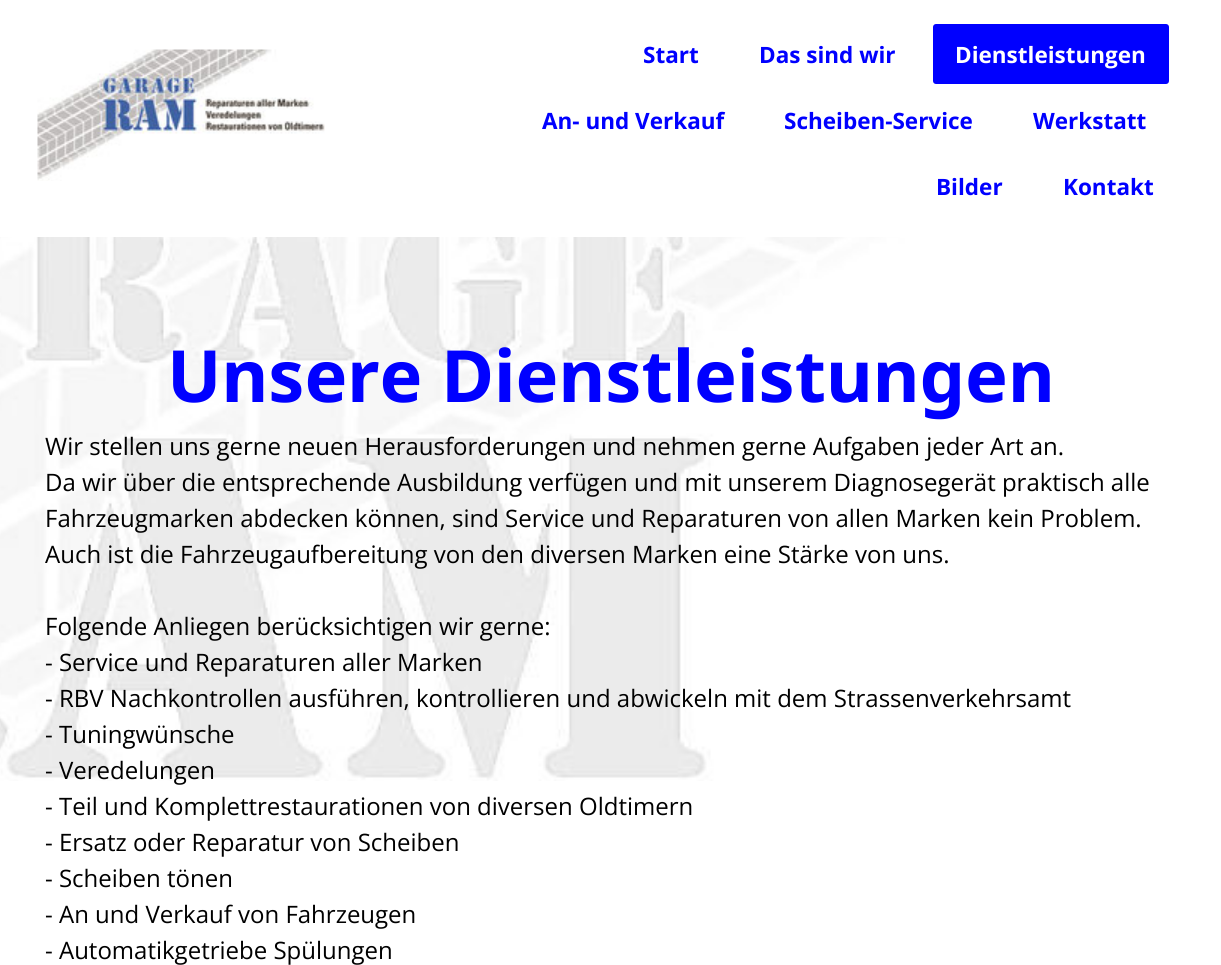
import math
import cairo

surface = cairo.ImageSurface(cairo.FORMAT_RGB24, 1221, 965)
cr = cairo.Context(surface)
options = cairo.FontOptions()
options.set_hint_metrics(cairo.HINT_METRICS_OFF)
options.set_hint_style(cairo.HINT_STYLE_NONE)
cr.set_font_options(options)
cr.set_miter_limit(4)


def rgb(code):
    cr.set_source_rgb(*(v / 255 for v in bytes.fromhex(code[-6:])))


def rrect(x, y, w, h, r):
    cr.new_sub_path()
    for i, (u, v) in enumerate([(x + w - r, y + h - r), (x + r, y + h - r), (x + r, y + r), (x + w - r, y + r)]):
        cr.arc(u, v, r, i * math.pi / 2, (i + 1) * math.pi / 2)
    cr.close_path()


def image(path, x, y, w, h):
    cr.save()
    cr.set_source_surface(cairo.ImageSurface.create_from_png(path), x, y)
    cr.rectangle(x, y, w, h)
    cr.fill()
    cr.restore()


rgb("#ffffff")
cr.paint()
image("img/1.png", 37, 49, 288, 132)
rgb("#0000ff")
rrect(933, 24, 236, 60, 3)
cr.fill()
image("img/2.png", 0, 237, 1221, 544)
cr.select_font_face("Open Sans", cairo.FONT_SLANT_NORMAL, cairo.FONT_WEIGHT_BOLD)
cr.set_font_size(22.5)
cr.move_to(643, 63)
cr.show_text("Start")
cr.move_to(759, 63)
cr.show_text("Das sind wir")
rgb("#ffffff")
cr.move_to(955, 63)
cr.show_text("Dienstleistungen")
rgb("#0000ff")
for x, y, s in [
    (542, 129, "An- und Verkauf"),
    (784, 129, "Scheiben-Service"),
    (1033, 129, "Werkstatt"),
    (936, 195, "Bilder"),
    (1063, 195, "Kontakt"),
]:
    cr.move_to(x, y)
    cr.show_text(s)
cr.select_font_face("Noto Sans", cairo.FONT_SLANT_NORMAL, cairo.FONT_WEIGHT_BOLD)
cr.set_font_size(72)
cr.move_to(167, 402)
cr.show_text("Unsere Dienstleistungen")
cr.select_font_face("Open Sans")
cr.set_font_size(24)
rgb("#000000")
for x, y, s in [
    (45, 455, "Wir stellen uns gerne neuen Herausforderungen und nehmen gerne Aufgaben jeder Art an."),
    (45, 491, "Da wir über die entsprechende Ausbildung verfügen und mit unserem Diagnosegerät praktisch alle"),
    (45, 527, "Fahrzeugmarken abdecken können, sind Service und Reparaturen von allen Marken kein Problem."),
    (45, 563, "Auch ist die Fahrzeugaufbereitung von den diversen Marken eine Stärke von uns."),
    (45, 635, "Folgende Anliegen berücksichtigen wir gerne:"),
    (45, 671, "- Service und Reparaturen aller Marken"),
    (45, 707, "- RBV Nachkontrollen ausführen, kontrollieren und abwickeln mit dem Strassenverkehrsamt"),
    (45, 743, "- Tuningwünsche"),
    (45, 779, "- Veredelungen"),
    (45, 815, "- Teil und Komplettrestaurationen von diversen Oldtimern"),
    (45, 851, "- Ersatz oder Reparatur von Scheiben"),
    (45, 887, "- Scheiben tönen"),
    (45, 923, "- An und Verkauf von Fahrzeugen"),
    (45, 959, "- Automatikgetriebe Spülungen"),
]:
    cr.move_to(x, y)
    cr.show_text(s)
surface.write_to_png("page.png")
